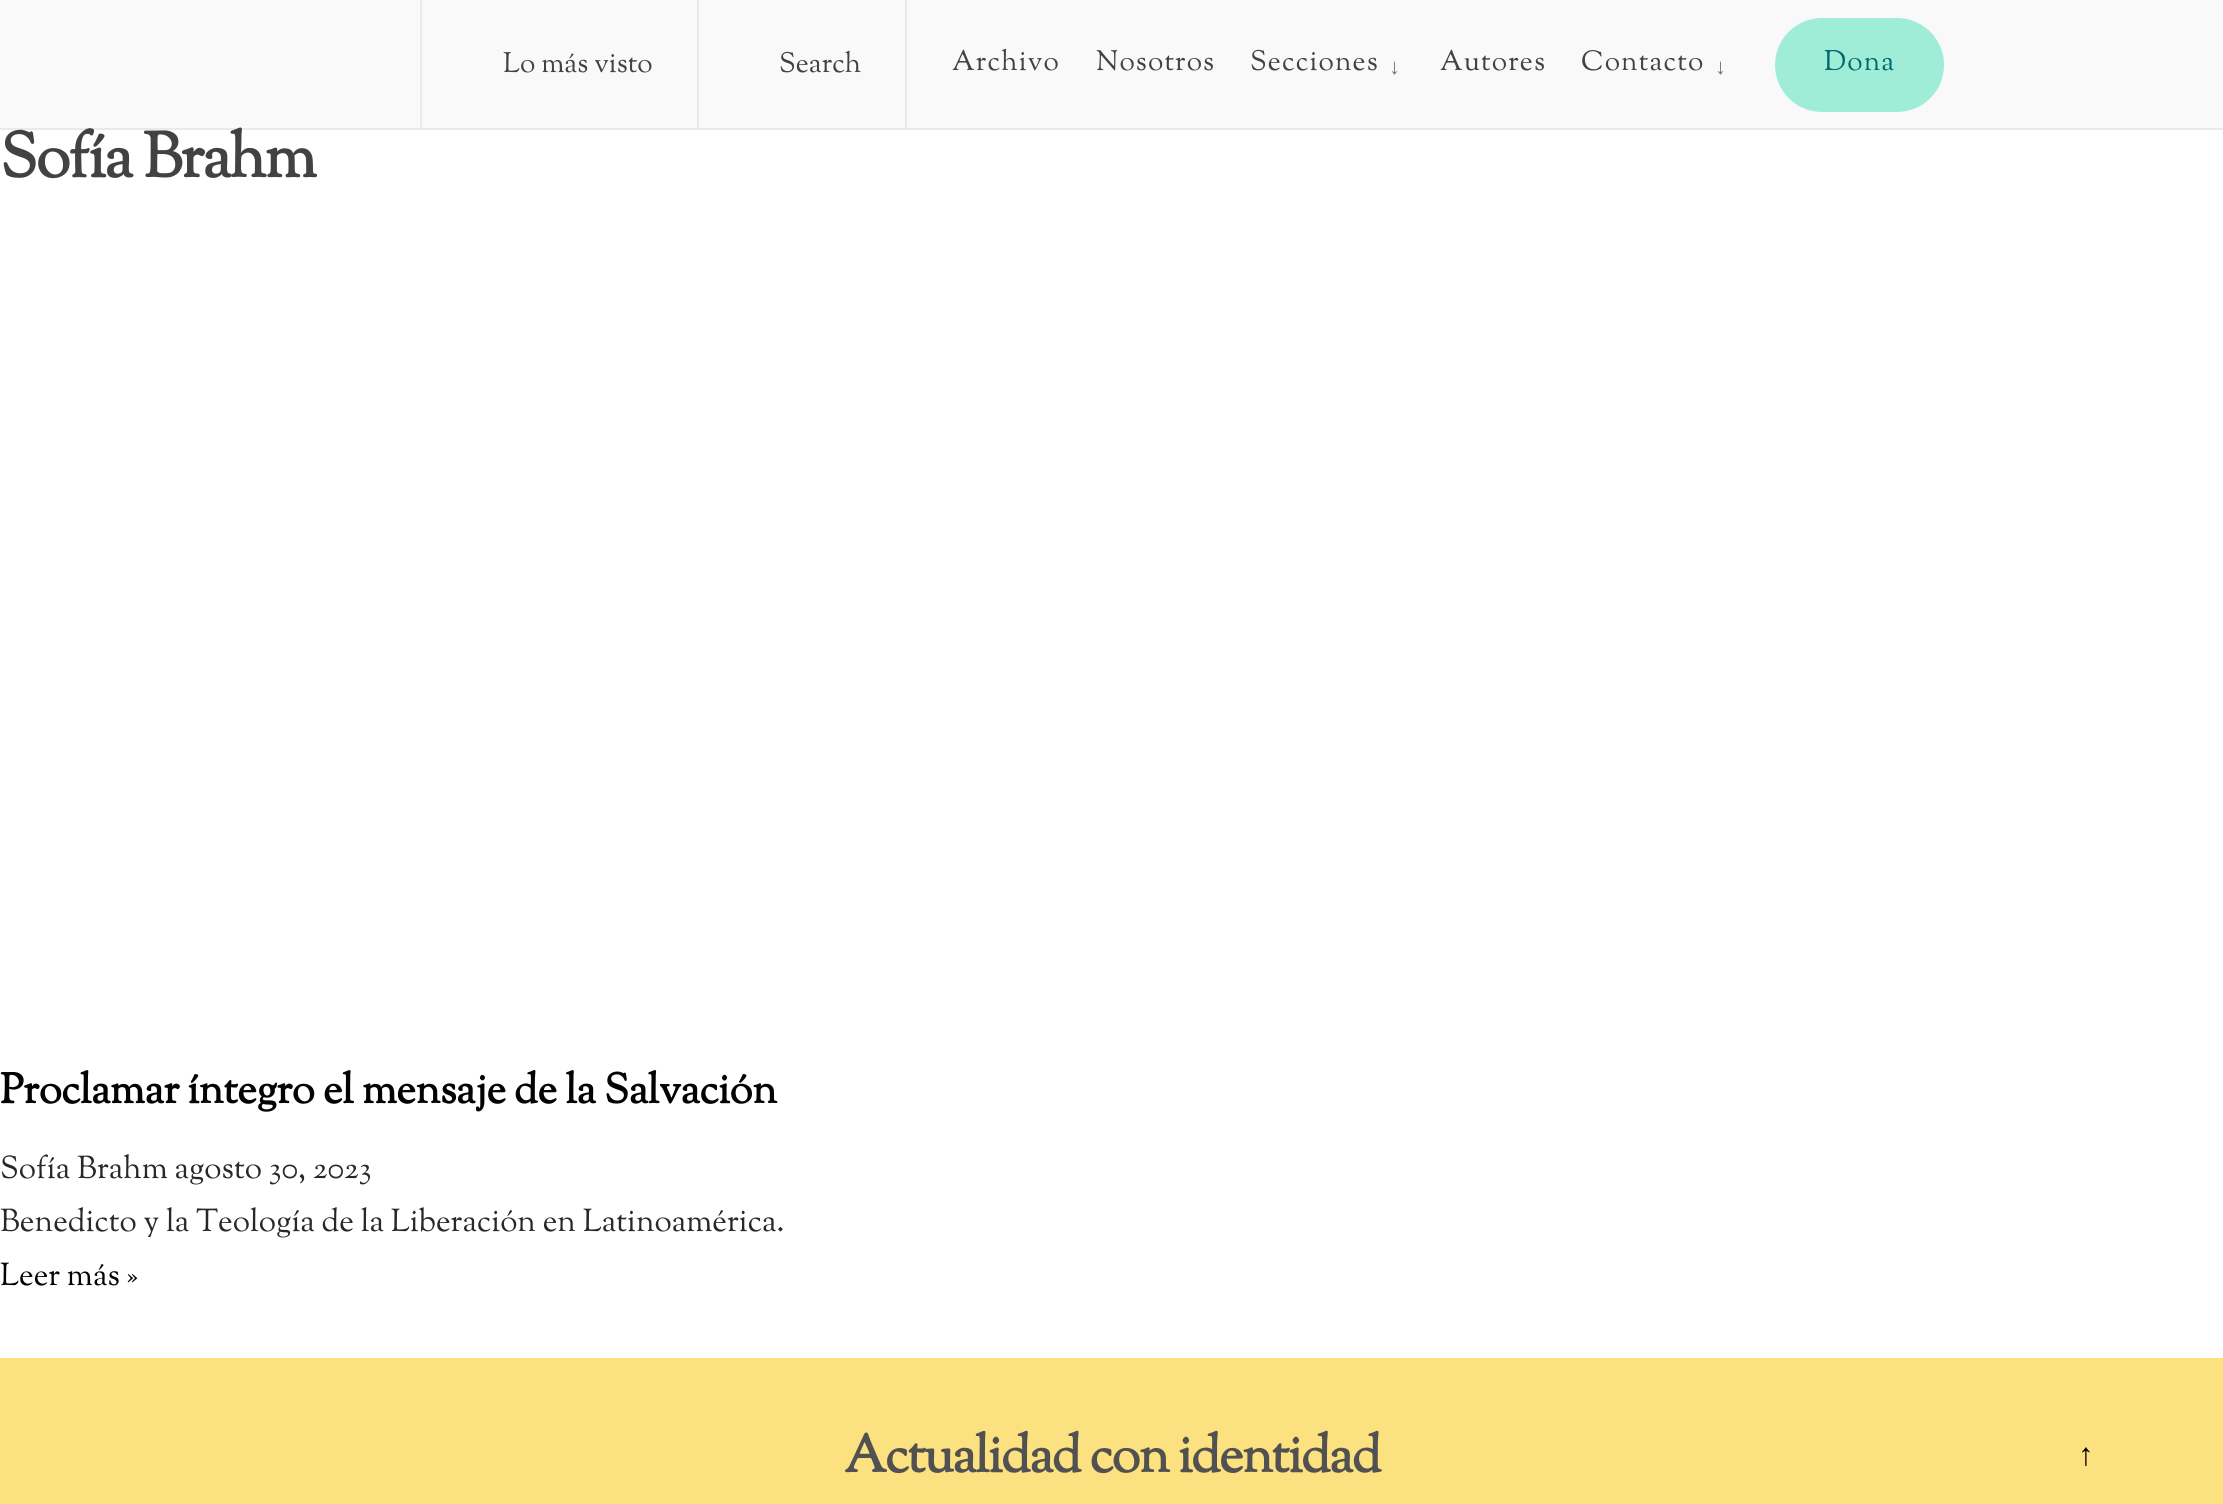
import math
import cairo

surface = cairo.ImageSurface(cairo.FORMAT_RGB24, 2223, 1504)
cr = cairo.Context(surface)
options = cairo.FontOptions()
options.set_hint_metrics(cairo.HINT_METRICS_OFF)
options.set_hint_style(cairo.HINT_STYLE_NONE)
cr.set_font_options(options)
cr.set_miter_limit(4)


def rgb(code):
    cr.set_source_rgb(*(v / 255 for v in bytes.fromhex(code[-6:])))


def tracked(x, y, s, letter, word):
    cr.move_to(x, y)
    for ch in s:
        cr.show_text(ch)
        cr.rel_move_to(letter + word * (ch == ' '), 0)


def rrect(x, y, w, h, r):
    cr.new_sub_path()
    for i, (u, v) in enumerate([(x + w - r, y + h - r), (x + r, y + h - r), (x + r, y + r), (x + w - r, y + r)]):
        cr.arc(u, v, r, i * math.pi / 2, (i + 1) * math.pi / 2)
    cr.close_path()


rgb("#ffffff")
cr.paint()
for x, y, w, h, color in [
    (0, 128, 2223, 2, "#eaeaea"),
    (0, 0, 2223, 128, "#f9f9f9"),
    (697, 0, 2, 128, "#eaeaea"),
    (420, 0, 2, 128, "#eaeaea"),
    (905, 0, 2, 128, "#eaeaea"),
]:
    rgb(color)
    cr.rectangle(x, y, w, h)
    cr.fill()
rgb("#9fedd7")
rrect(1775, 18, 169, 94, 47)
cr.fill()
rgb("#fbe180")
cr.rectangle(0, 1358, 2223, 146)
cr.fill()
cr.select_font_face("Sorts Mill Goudy")
cr.set_font_size(28)
rgb("#424242")
cr.move_to(503, 72)
cr.show_text("Lo más visto")
cr.move_to(779, 72)
cr.show_text("Search")
for x, y, s in [
    (952, 70, "Archivo"),
    (1096, 70, "Nosotros"),
    (1250, 70, "Secciones"),
]:
    tracked(x, y, s, 1.1, 0)
cr.select_font_face("Liberation Sans")
cr.set_font_size(22)
rgb("#797776")
tracked(1389, 74, "↓", 1.1, 0)
cr.select_font_face("Sorts Mill Goudy")
cr.set_font_size(28)
rgb("#424242")
tracked(1440, 70, "Autores", 1.1, 0)
tracked(1581, 70, "Contacto", 1.1, 0)
cr.select_font_face("Liberation Sans")
cr.set_font_size(22)
rgb("#797776")
tracked(1715, 74, "↓", 1.1, 0)
cr.select_font_face("Sorts Mill Goudy")
cr.set_font_size(28)
rgb("#016670")
tracked(1824, 70, "Dona", 1.1, 0)
cr.select_font_face("Sorts Mill Goudy", cairo.FONT_SLANT_NORMAL, cairo.FONT_WEIGHT_BOLD)
cr.set_font_size(63)
rgb("#424242")
tracked(0, 177, "Sofía Brahm", -1.9, 0)
cr.set_font_size(42)
rgb("#020202")
tracked(0, 1103, "Proclamar íntegro el mensaje de la Salvación", -0.4, 0)
cr.select_font_face("Sorts Mill Goudy")
cr.set_font_size(31.5)
rgb("#282828")
cr.move_to(0, 1178)
cr.show_text("Sofía Brahm agosto 30, 2023")
cr.move_to(0, 1231)
cr.show_text("Benedicto y la Teología de la Liberación en Latinoamérica.")
rgb("#020202")
cr.move_to(0, 1285)
cr.show_text("Leer más »")
cr.select_font_face("Sorts Mill Goudy", cairo.FONT_SLANT_NORMAL, cairo.FONT_WEIGHT_BOLD)
cr.set_font_size(52.5)
rgb("#515151")
tracked(844, 1472, "Actualidad con identidad", -1.6, 0)
cr.select_font_face("Liberation Serif")
cr.set_font_size(31.5)
rgb("#020202")
cr.move_to(2078, 1465)
cr.show_text("↑")
surface.write_to_png("page.png")
